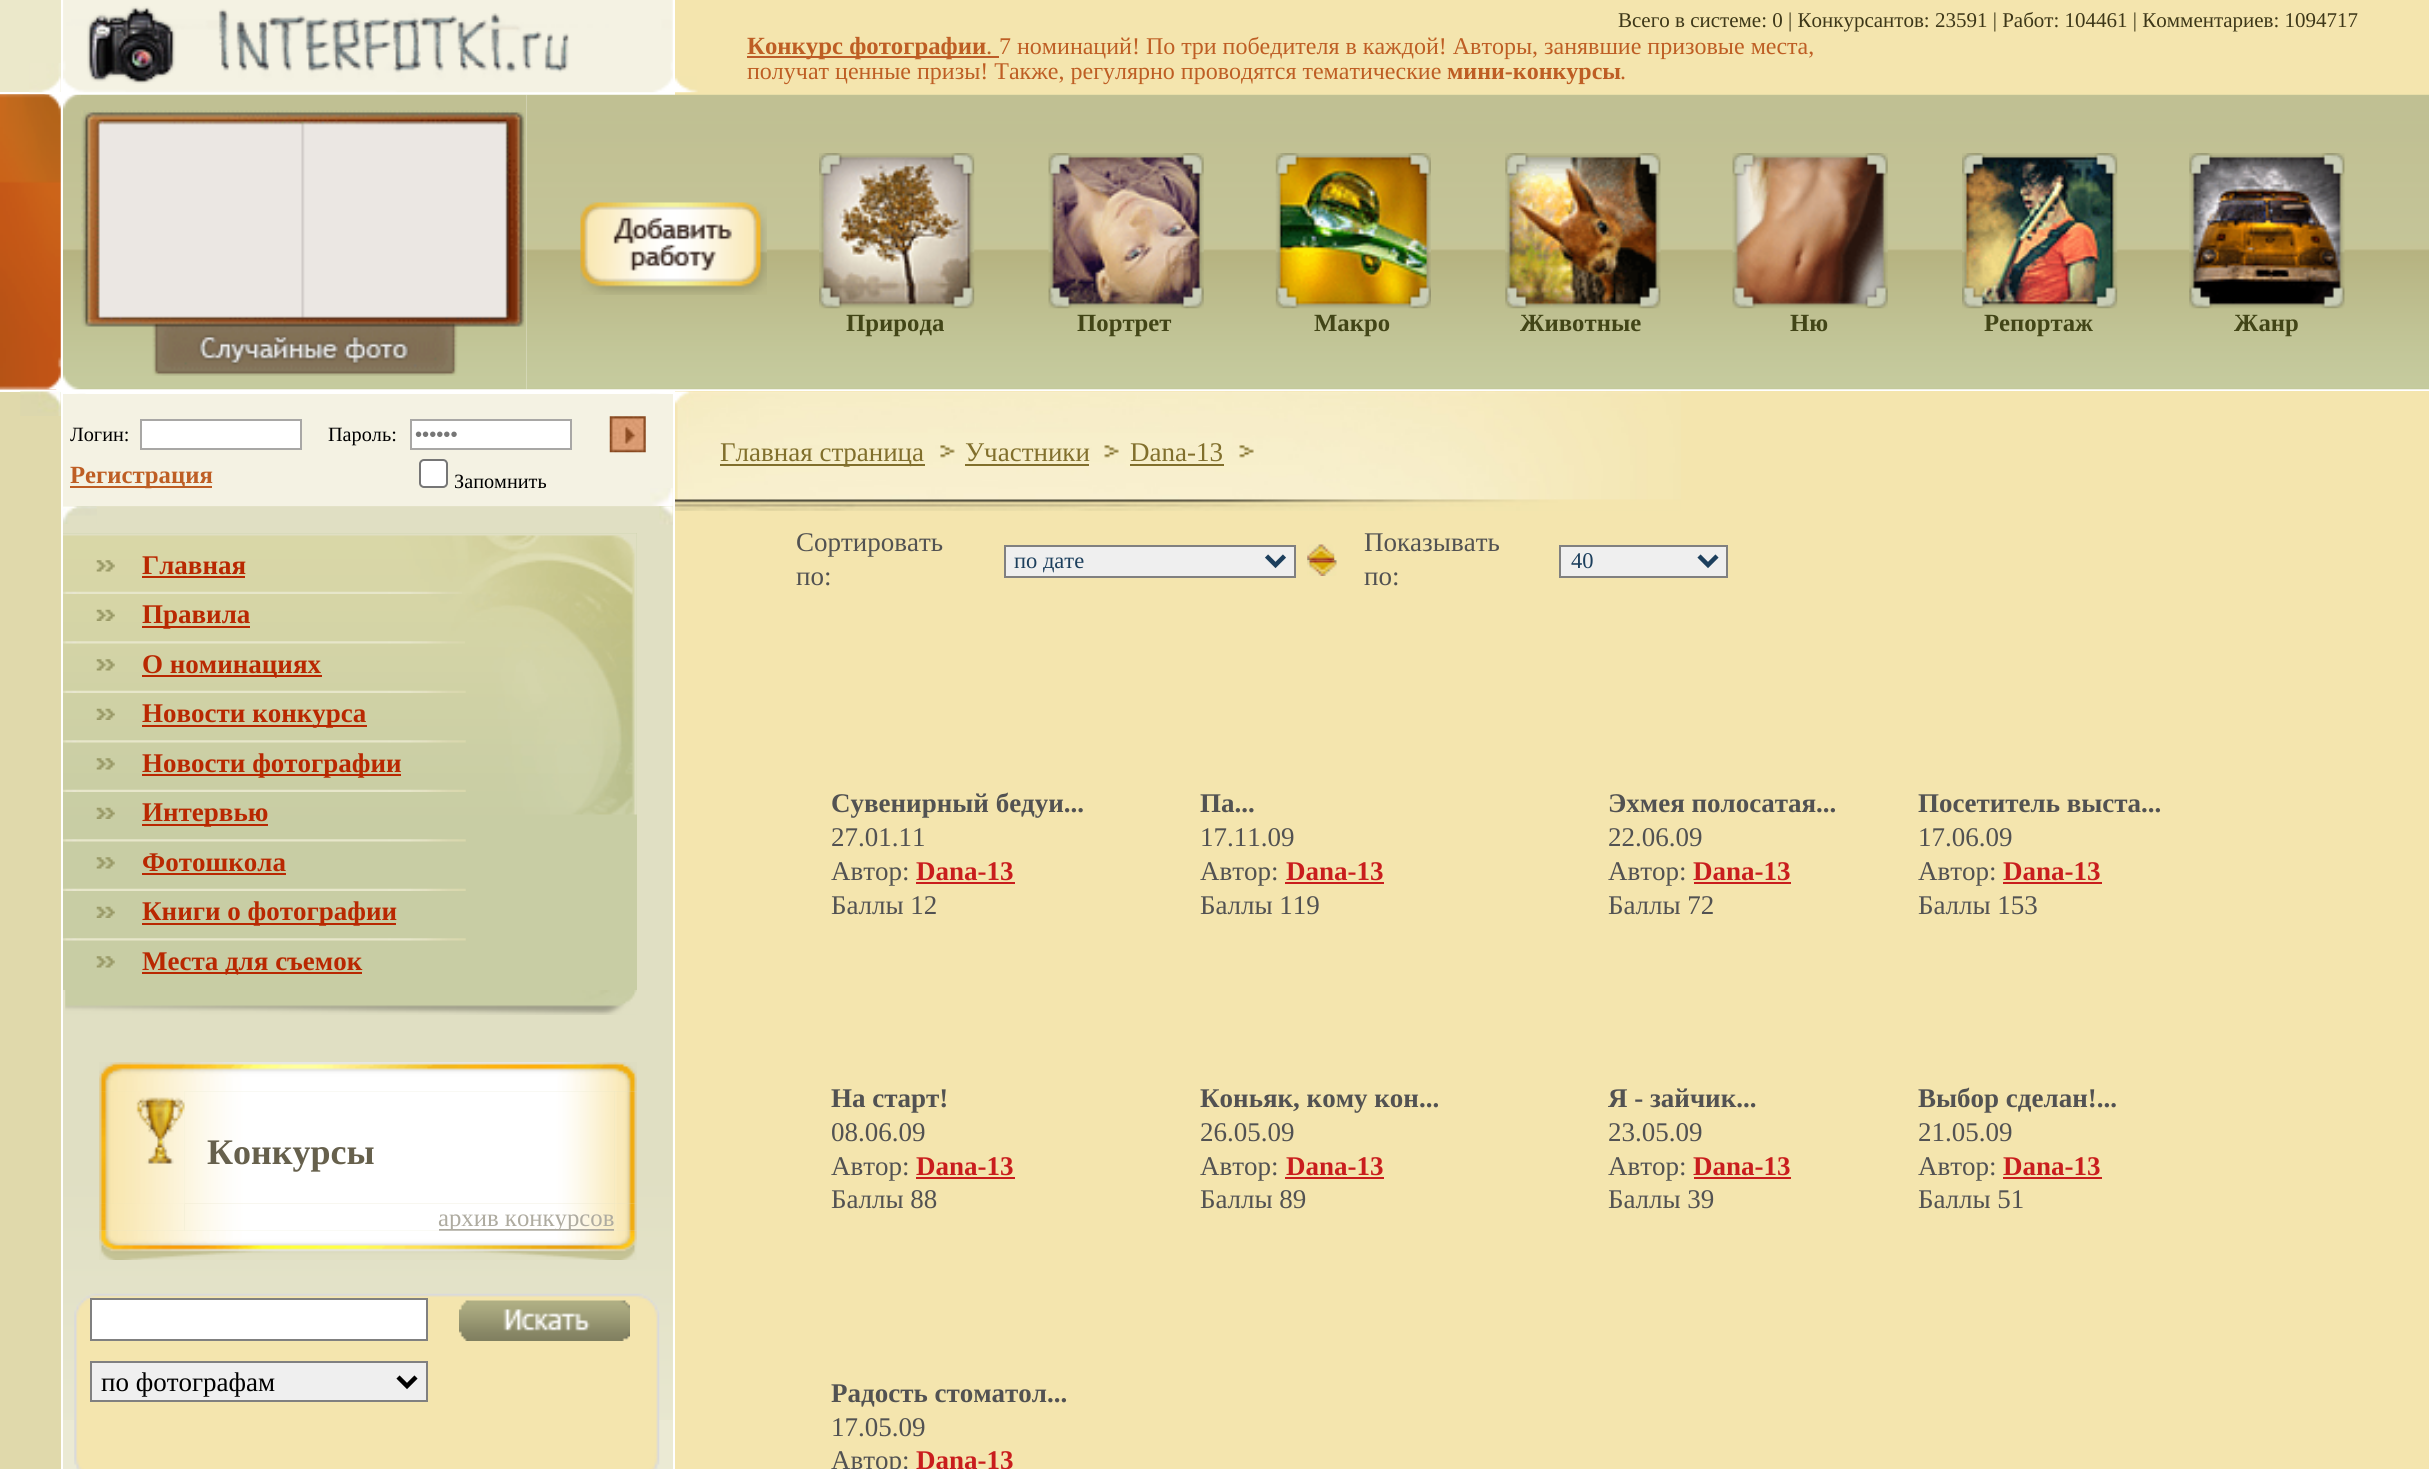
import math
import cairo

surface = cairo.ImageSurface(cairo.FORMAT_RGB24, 2429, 1469)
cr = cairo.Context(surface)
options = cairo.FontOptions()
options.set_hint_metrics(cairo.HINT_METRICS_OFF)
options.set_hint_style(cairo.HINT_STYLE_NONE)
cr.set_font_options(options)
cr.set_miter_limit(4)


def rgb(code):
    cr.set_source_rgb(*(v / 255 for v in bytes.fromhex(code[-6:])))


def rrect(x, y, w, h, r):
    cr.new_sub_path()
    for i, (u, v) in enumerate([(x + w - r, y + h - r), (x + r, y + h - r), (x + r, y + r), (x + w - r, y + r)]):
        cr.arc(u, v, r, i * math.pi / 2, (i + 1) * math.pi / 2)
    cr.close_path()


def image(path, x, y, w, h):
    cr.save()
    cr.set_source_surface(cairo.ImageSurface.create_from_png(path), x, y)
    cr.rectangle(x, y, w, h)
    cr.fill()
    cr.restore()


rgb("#ffffff")
cr.paint()
rgb("#e0d9ab")
cr.rectangle(0, 392, 61, 1077)
cr.fill()
rgb("#ebe8ca")
cr.rectangle(0, 0, 61, 92)
cr.fill()
image("img/1.png", 29, 63, 32, 30)
image("img/2.png", 0, 94, 57, 296)
image("img/3.png", 0, 94, 61, 296)
image("img/4.png", 20, 391, 41, 25)
image("img/5.png", 63, 0, 610, 93)
image("img/6.png", 63, 393, 23, 1)
image("img/7.png", 650, 393, 23, 1)
rgb("#f4f2e3")
cr.rectangle(63, 394, 610, 112)
cr.fill()
image("img/8.png", 650, 488, 23, 18)
rgb("#ffffff")
cr.rectangle(141, 420, 160, 29)
cr.fill_preserve()
rgb("#a8a7a5")
cr.stroke()
rgb("#ffffff")
cr.rectangle(411, 420, 160, 29)
cr.fill_preserve()
rgb("#a8a7a5")
cr.stroke()
image("img/9.png", 609, 416, 37, 37)
rgb("#be5e24")
cr.rectangle(70, 486, 142, 2)
cr.fill()
rgb("#ffffff")
rrect(420, 460, 27, 27, 4)
cr.fill_preserve()
rgb("#767676")
cr.stroke()
rgb("#ebead4")
cr.rectangle(63, 506, 610, 963)
cr.fill()
image("img/10.png", 63, 506, 610, 914)
image("img/11.png", 659, 506, 14, 19)
image("img/12.png", 63, 506, 34, 18)
rgb("#c8cda4")
cr.rectangle(63, 533, 574, 457)
cr.fill()
image("img/13.png", 63, 533, 574, 282)
image("img/14.png", 63, 591, 399, 3)
image("img/15.png", 96, 560, 19, 12)
rgb("#b92801")
cr.rectangle(142, 576, 103, 2)
cr.fill()
image("img/16.png", 63, 641, 402, 3)
image("img/17.png", 96, 609, 19, 12)
cr.rectangle(142, 626, 108, 2)
cr.fill()
image("img/18.png", 63, 690, 403, 3)
image("img/19.png", 96, 659, 19, 12)
cr.rectangle(142, 675, 180, 2)
cr.fill()
image("img/20.png", 63, 740, 403, 3)
image("img/21.png", 96, 708, 19, 12)
cr.rectangle(142, 725, 225, 2)
cr.fill()
image("img/22.png", 63, 789, 403, 3)
image("img/23.png", 96, 758, 19, 12)
cr.rectangle(142, 774, 259, 2)
cr.fill()
image("img/24.png", 63, 839, 403, 3)
image("img/25.png", 96, 807, 19, 12)
cr.rectangle(142, 824, 126, 2)
cr.fill()
image("img/26.png", 63, 888, 403, 3)
image("img/27.png", 96, 857, 19, 12)
cr.rectangle(142, 873, 144, 2)
cr.fill()
image("img/24.png", 63, 938, 403, 3)
image("img/28.png", 96, 906, 19, 12)
cr.rectangle(142, 923, 254, 2)
cr.fill()
image("img/27.png", 96, 956, 19, 12)
cr.rectangle(142, 972, 220, 2)
cr.fill()
image("img/29.png", 65, 990, 572, 25)
image("img/30.png", 99, 1062, 538, 30)
image("img/31.png", 99, 1091, 86, 113)
image("img/33.png", 184, 1091, 431, 113)
image("img/35.png", 99, 1203, 86, 28)
image("img/32.png", 99, 1091, 86, 113)
image("img/34.png", 614, 1091, 23, 113)
image("img/36.png", 184, 1204, 431, 27)
rgb("#aeaba0")
cr.rectangle(439, 1229, 175, 2)
cr.fill()
image("img/37.png", 614, 1203, 23, 28)
image("img/39.png", 74, 1293, 586, 176)
rgb("#ffffff")
cr.rectangle(91, 1299, 336, 41)
cr.fill_preserve()
rgb("#808080")
cr.stroke()
image("img/40.png", 459, 1300, 171, 41)
rgb("#efefef")
cr.rectangle(91, 1362, 336, 39)
cr.fill_preserve()
rgb("#808080")
cr.stroke()
cr.new_path()
cr.move_to(398, 1377)
cr.line_to(407, 1386)
cr.line_to(416, 1377)
rgb("#000000")
cr.set_line_width(4.5)
cr.stroke()
rgb("#f4e5ae")
cr.rectangle(675, 0, 1754, 1469)
cr.fill()
image("img/41.png", 675, 76, 23, 17)
rgb("#bd5c29")
cr.rectangle(747, 56, 252, 2)
cr.fill()
image("img/42.png", 63, 94, 18, 296)
image("img/43.png", 81, 94, 446, 296)
image("img/44.png", 81, 110, 444, 266)
rgb("#ffffff")
cr.rectangle(675, 389, 1754, 2)
cr.fill()
image("img/45.png", 526, 94, 293, 296)
image("img/46.png", 580, 202, 187, 93)
image("img/47.png", 819, 94, 1610, 296)
image("img/48.png", 819, 153, 156, 156)
image("img/49.png", 1048, 153, 156, 156)
image("img/50.png", 1275, 153, 156, 156)
image("img/51.png", 1505, 153, 156, 156)
image("img/52.png", 1732, 153, 156, 156)
image("img/53.png", 1962, 153, 156, 156)
image("img/54.png", 2189, 153, 156, 156)
image("img/55.png", 675, 391, 1006, 120)
rgb("#816f2c")
cr.rectangle(720, 464, 205, 2)
cr.fill()
image("img/56.png", 940, 445, 15, 13)
cr.rectangle(965, 464, 124, 2)
cr.fill()
image("img/57.png", 1104, 445, 15, 13)
cr.rectangle(1130, 464, 94, 2)
cr.fill()
image("img/58.png", 1239, 445, 15, 13)
rgb("#efefef")
cr.rectangle(1005, 546, 290, 31)
cr.fill_preserve()
rgb("#808080")
cr.set_line_width(2)
cr.stroke()
cr.new_path()
cr.move_to(1266.5, 556)
cr.line_to(1275.5, 565)
cr.line_to(1284.5, 556)
rgb("#1c3f5d")
cr.set_line_width(4.5)
cr.stroke()
image("img/59.png", 1307, 544, 28, 17)
image("img/60.png", 1307, 560, 30, 16)
rgb("#efefef")
cr.rectangle(1560, 546, 167, 31)
cr.fill_preserve()
rgb("#808080")
cr.set_line_width(2)
cr.stroke()
cr.new_path()
cr.move_to(1699, 556)
cr.line_to(1708, 565)
cr.line_to(1717, 556)
rgb("#1c3f5d")
cr.set_line_width(4.5)
cr.stroke()
for x, y, w, h, color in [
    (916, 882, 99, 2, "#c91d1d"),
    (1285, 882, 99, 2, "#c91d1d"),
    (1694, 882, 97, 2, "#c91d1d"),
    (2003, 882, 99, 2, "#c91d1d"),
    (916, 1177, 99, 2, "#c91d1d"),
    (1285, 1177, 99, 2, "#c91d1d"),
    (1694, 1177, 97, 2, "#c91d1d"),
    (2003, 1177, 99, 2, "#c91d1d"),
]:
    rgb(color)
    cr.rectangle(x, y, w, h)
    cr.fill()
cr.select_font_face("Liberation Serif")
cr.set_font_size(20.25)
rgb("#000000")
cr.move_to(70, 441)
cr.show_text("Логин:")
cr.move_to(328, 441)
cr.show_text("Пароль:")
cr.select_font_face("Liberation Sans")
rgb("#767676")
cr.move_to(415, 441)
cr.show_text("••••••")
cr.select_font_face("Liberation Serif", cairo.FONT_SLANT_NORMAL, cairo.FONT_WEIGHT_BOLD)
cr.set_font_size(24.75)
rgb("#be5e24")
cr.move_to(70, 483)
cr.show_text("Регистрация")
cr.select_font_face("Liberation Serif")
cr.set_font_size(20.25)
rgb("#000000")
cr.move_to(454, 488)
cr.show_text("Запомнить")
cr.select_font_face("Liberation Serif", cairo.FONT_SLANT_NORMAL, cairo.FONT_WEIGHT_BOLD)
cr.set_font_size(27)
rgb("#b92801")
for x, y, s in [
    (142, 574, "Главная"),
    (142, 623, "Правила"),
    (142, 673, "О номинациях"),
    (142, 722, "Новости конкурса"),
    (142, 772, "Новости фотографии"),
    (142, 821, "Интервью"),
    (142, 871, "Фотошкола"),
    (142, 920, "Книги о фотографии"),
    (142, 970, "Места для съемок"),
]:
    cr.move_to(x, y)
    cr.show_text(s)
cr.set_font_size(36)
rgb("#66604c")
cr.move_to(207, 1164)
cr.show_text("Конкурсы")
cr.select_font_face("Liberation Serif")
cr.set_font_size(24.75)
rgb("#aeaba0")
cr.move_to(438, 1226)
cr.show_text("архив конкурсов")
image("img/38.png", 99, 1230, 538, 30)
cr.set_font_size(27)
rgb("#000000")
cr.move_to(101, 1391)
cr.show_text("по фотографам")
cr.set_font_size(21)
rgb("#3d3718")
cr.move_to(1618, 27)
cr.show_text("Всего в системе: 0 | Конкурсантов: 23591 | Работ: 104461 | Комментариев: 1094717")
cr.select_font_face("Liberation Serif", cairo.FONT_SLANT_NORMAL, cairo.FONT_WEIGHT_BOLD)
cr.set_font_size(24.75)
rgb("#be5e24")
cr.move_to(747, 54)
cr.show_text("Конкурс фотографии")
cr.select_font_face("Liberation Serif")
cr.move_to(986, 54)
cr.show_text(".")
cr.set_font_size(24)
cr.move_to(999, 54)
cr.show_text("7 номинаций! По три победителя в каждой! Авторы, занявшие призовые места,")
cr.move_to(747, 79)
cr.show_text("получат ценные призы! Также, регулярно проводятся тематические")
cr.select_font_face("Liberation Serif", cairo.FONT_SLANT_NORMAL, cairo.FONT_WEIGHT_BOLD)
cr.move_to(1447, 79)
cr.show_text("мини-конкурсы")
cr.select_font_face("Liberation Serif")
cr.move_to(1620, 79)
cr.show_text(".")
cr.select_font_face("Liberation Serif", cairo.FONT_SLANT_NORMAL, cairo.FONT_WEIGHT_BOLD)
cr.set_font_size(24.75)
rgb("#424517")
for x, y, s in [
    (846, 331, "Природа"),
    (1077, 331, "Портрет"),
    (1314, 331, "Макро"),
    (1520, 331, "Животные"),
    (1790, 331, "Ню"),
    (1984, 331, "Репортаж"),
    (2234, 331, "Жанр"),
]:
    cr.move_to(x, y)
    cr.show_text(s)
cr.select_font_face("Liberation Serif")
cr.set_font_size(27)
rgb("#816f2c")
for x, y, s in [
    (720, 461, "Главная страница"),
    (965, 461, "Участники"),
    (1130, 461, "Dana-13"),
]:
    cr.move_to(x, y)
    cr.show_text(s)
rgb("#525252")
cr.move_to(796, 551)
cr.show_text("Сортировать")
cr.move_to(796, 585)
cr.show_text("по:")
cr.set_font_size(22.5)
rgb("#1c3f5d")
cr.move_to(1014, 568)
cr.show_text("по дате")
cr.set_font_size(27)
rgb("#525252")
cr.move_to(1364, 551)
cr.show_text("Показывать")
cr.move_to(1364, 585)
cr.show_text("по:")
cr.set_font_size(22.5)
rgb("#1c3f5d")
cr.move_to(1571, 568)
cr.show_text("40")
cr.select_font_face("Liberation Serif", cairo.FONT_SLANT_NORMAL, cairo.FONT_WEIGHT_BOLD)
cr.set_font_size(27)
rgb("#525252")
cr.move_to(831, 812)
cr.show_text("Сувенирный бедуи...")
cr.select_font_face("Liberation Serif")
cr.move_to(831, 846)
cr.show_text("27.01.11")
cr.move_to(831, 880)
cr.show_text("Автор:")
cr.select_font_face("Liberation Serif", cairo.FONT_SLANT_NORMAL, cairo.FONT_WEIGHT_BOLD)
rgb("#c91d1d")
cr.move_to(916, 880)
cr.show_text("Dana-13")
cr.select_font_face("Liberation Serif")
rgb("#525252")
cr.move_to(831, 914)
cr.show_text("Баллы 12")
cr.select_font_face("Liberation Serif", cairo.FONT_SLANT_NORMAL, cairo.FONT_WEIGHT_BOLD)
cr.move_to(1200, 812)
cr.show_text("Па...")
cr.select_font_face("Liberation Serif")
cr.move_to(1200, 846)
cr.show_text("17.11.09")
cr.move_to(1200, 880)
cr.show_text("Автор:")
cr.select_font_face("Liberation Serif", cairo.FONT_SLANT_NORMAL, cairo.FONT_WEIGHT_BOLD)
rgb("#c91d1d")
cr.move_to(1286, 880)
cr.show_text("Dana-13")
cr.select_font_face("Liberation Serif")
rgb("#525252")
cr.move_to(1200, 914)
cr.show_text("Баллы 119")
cr.select_font_face("Liberation Serif", cairo.FONT_SLANT_NORMAL, cairo.FONT_WEIGHT_BOLD)
cr.move_to(1608, 812)
cr.show_text("Эхмея полосатая...")
cr.select_font_face("Liberation Serif")
cr.move_to(1608, 846)
cr.show_text("22.06.09")
cr.move_to(1608, 880)
cr.show_text("Автор:")
cr.select_font_face("Liberation Serif", cairo.FONT_SLANT_NORMAL, cairo.FONT_WEIGHT_BOLD)
rgb("#c91d1d")
cr.move_to(1693, 880)
cr.show_text("Dana-13")
cr.select_font_face("Liberation Serif")
rgb("#525252")
cr.move_to(1608, 914)
cr.show_text("Баллы 72")
cr.select_font_face("Liberation Serif", cairo.FONT_SLANT_NORMAL, cairo.FONT_WEIGHT_BOLD)
cr.move_to(1918, 812)
cr.show_text("Посетитель выста...")
cr.select_font_face("Liberation Serif")
cr.move_to(1918, 846)
cr.show_text("17.06.09")
cr.move_to(1918, 880)
cr.show_text("Автор:")
cr.select_font_face("Liberation Serif", cairo.FONT_SLANT_NORMAL, cairo.FONT_WEIGHT_BOLD)
rgb("#c91d1d")
cr.move_to(2003, 880)
cr.show_text("Dana-13")
cr.select_font_face("Liberation Serif")
rgb("#525252")
cr.move_to(1918, 914)
cr.show_text("Баллы 153")
cr.select_font_face("Liberation Serif", cairo.FONT_SLANT_NORMAL, cairo.FONT_WEIGHT_BOLD)
cr.move_to(831, 1107)
cr.show_text("На старт!")
cr.select_font_face("Liberation Serif")
cr.move_to(831, 1141)
cr.show_text("08.06.09")
cr.move_to(831, 1175)
cr.show_text("Автор:")
cr.select_font_face("Liberation Serif", cairo.FONT_SLANT_NORMAL, cairo.FONT_WEIGHT_BOLD)
rgb("#c91d1d")
cr.move_to(916, 1175)
cr.show_text("Dana-13")
cr.select_font_face("Liberation Serif")
rgb("#525252")
cr.move_to(831, 1208)
cr.show_text("Баллы 88")
cr.select_font_face("Liberation Serif", cairo.FONT_SLANT_NORMAL, cairo.FONT_WEIGHT_BOLD)
cr.move_to(1200, 1107)
cr.show_text("Коньяк, кому кон...")
cr.select_font_face("Liberation Serif")
cr.move_to(1200, 1141)
cr.show_text("26.05.09")
cr.move_to(1200, 1175)
cr.show_text("Автор:")
cr.select_font_face("Liberation Serif", cairo.FONT_SLANT_NORMAL, cairo.FONT_WEIGHT_BOLD)
rgb("#c91d1d")
cr.move_to(1286, 1175)
cr.show_text("Dana-13")
cr.select_font_face("Liberation Serif")
rgb("#525252")
cr.move_to(1200, 1208)
cr.show_text("Баллы 89")
cr.select_font_face("Liberation Serif", cairo.FONT_SLANT_NORMAL, cairo.FONT_WEIGHT_BOLD)
cr.move_to(1608, 1107)
cr.show_text("Я - зайчик...")
cr.select_font_face("Liberation Serif")
cr.move_to(1608, 1141)
cr.show_text("23.05.09")
cr.move_to(1608, 1175)
cr.show_text("Автор:")
cr.select_font_face("Liberation Serif", cairo.FONT_SLANT_NORMAL, cairo.FONT_WEIGHT_BOLD)
rgb("#c91d1d")
cr.move_to(1693, 1175)
cr.show_text("Dana-13")
cr.select_font_face("Liberation Serif")
rgb("#525252")
cr.move_to(1608, 1208)
cr.show_text("Баллы 39")
cr.select_font_face("Liberation Serif", cairo.FONT_SLANT_NORMAL, cairo.FONT_WEIGHT_BOLD)
cr.move_to(1918, 1107)
cr.show_text("Выбор сделан!...")
cr.select_font_face("Liberation Serif")
cr.move_to(1918, 1141)
cr.show_text("21.05.09")
cr.move_to(1918, 1175)
cr.show_text("Автор:")
cr.select_font_face("Liberation Serif", cairo.FONT_SLANT_NORMAL, cairo.FONT_WEIGHT_BOLD)
rgb("#c91d1d")
cr.move_to(2003, 1175)
cr.show_text("Dana-13")
cr.select_font_face("Liberation Serif")
rgb("#525252")
cr.move_to(1918, 1208)
cr.show_text("Баллы 51")
cr.select_font_face("Liberation Serif", cairo.FONT_SLANT_NORMAL, cairo.FONT_WEIGHT_BOLD)
cr.move_to(831, 1402)
cr.show_text("Радость стоматол...")
cr.select_font_face("Liberation Serif")
cr.move_to(831, 1436)
cr.show_text("17.05.09")
cr.move_to(831, 1469)
cr.show_text("Автор:")
cr.select_font_face("Liberation Serif", cairo.FONT_SLANT_NORMAL, cairo.FONT_WEIGHT_BOLD)
rgb("#c91d1d")
cr.move_to(916, 1469)
cr.show_text("Dana-13")
surface.write_to_png("page.png")
